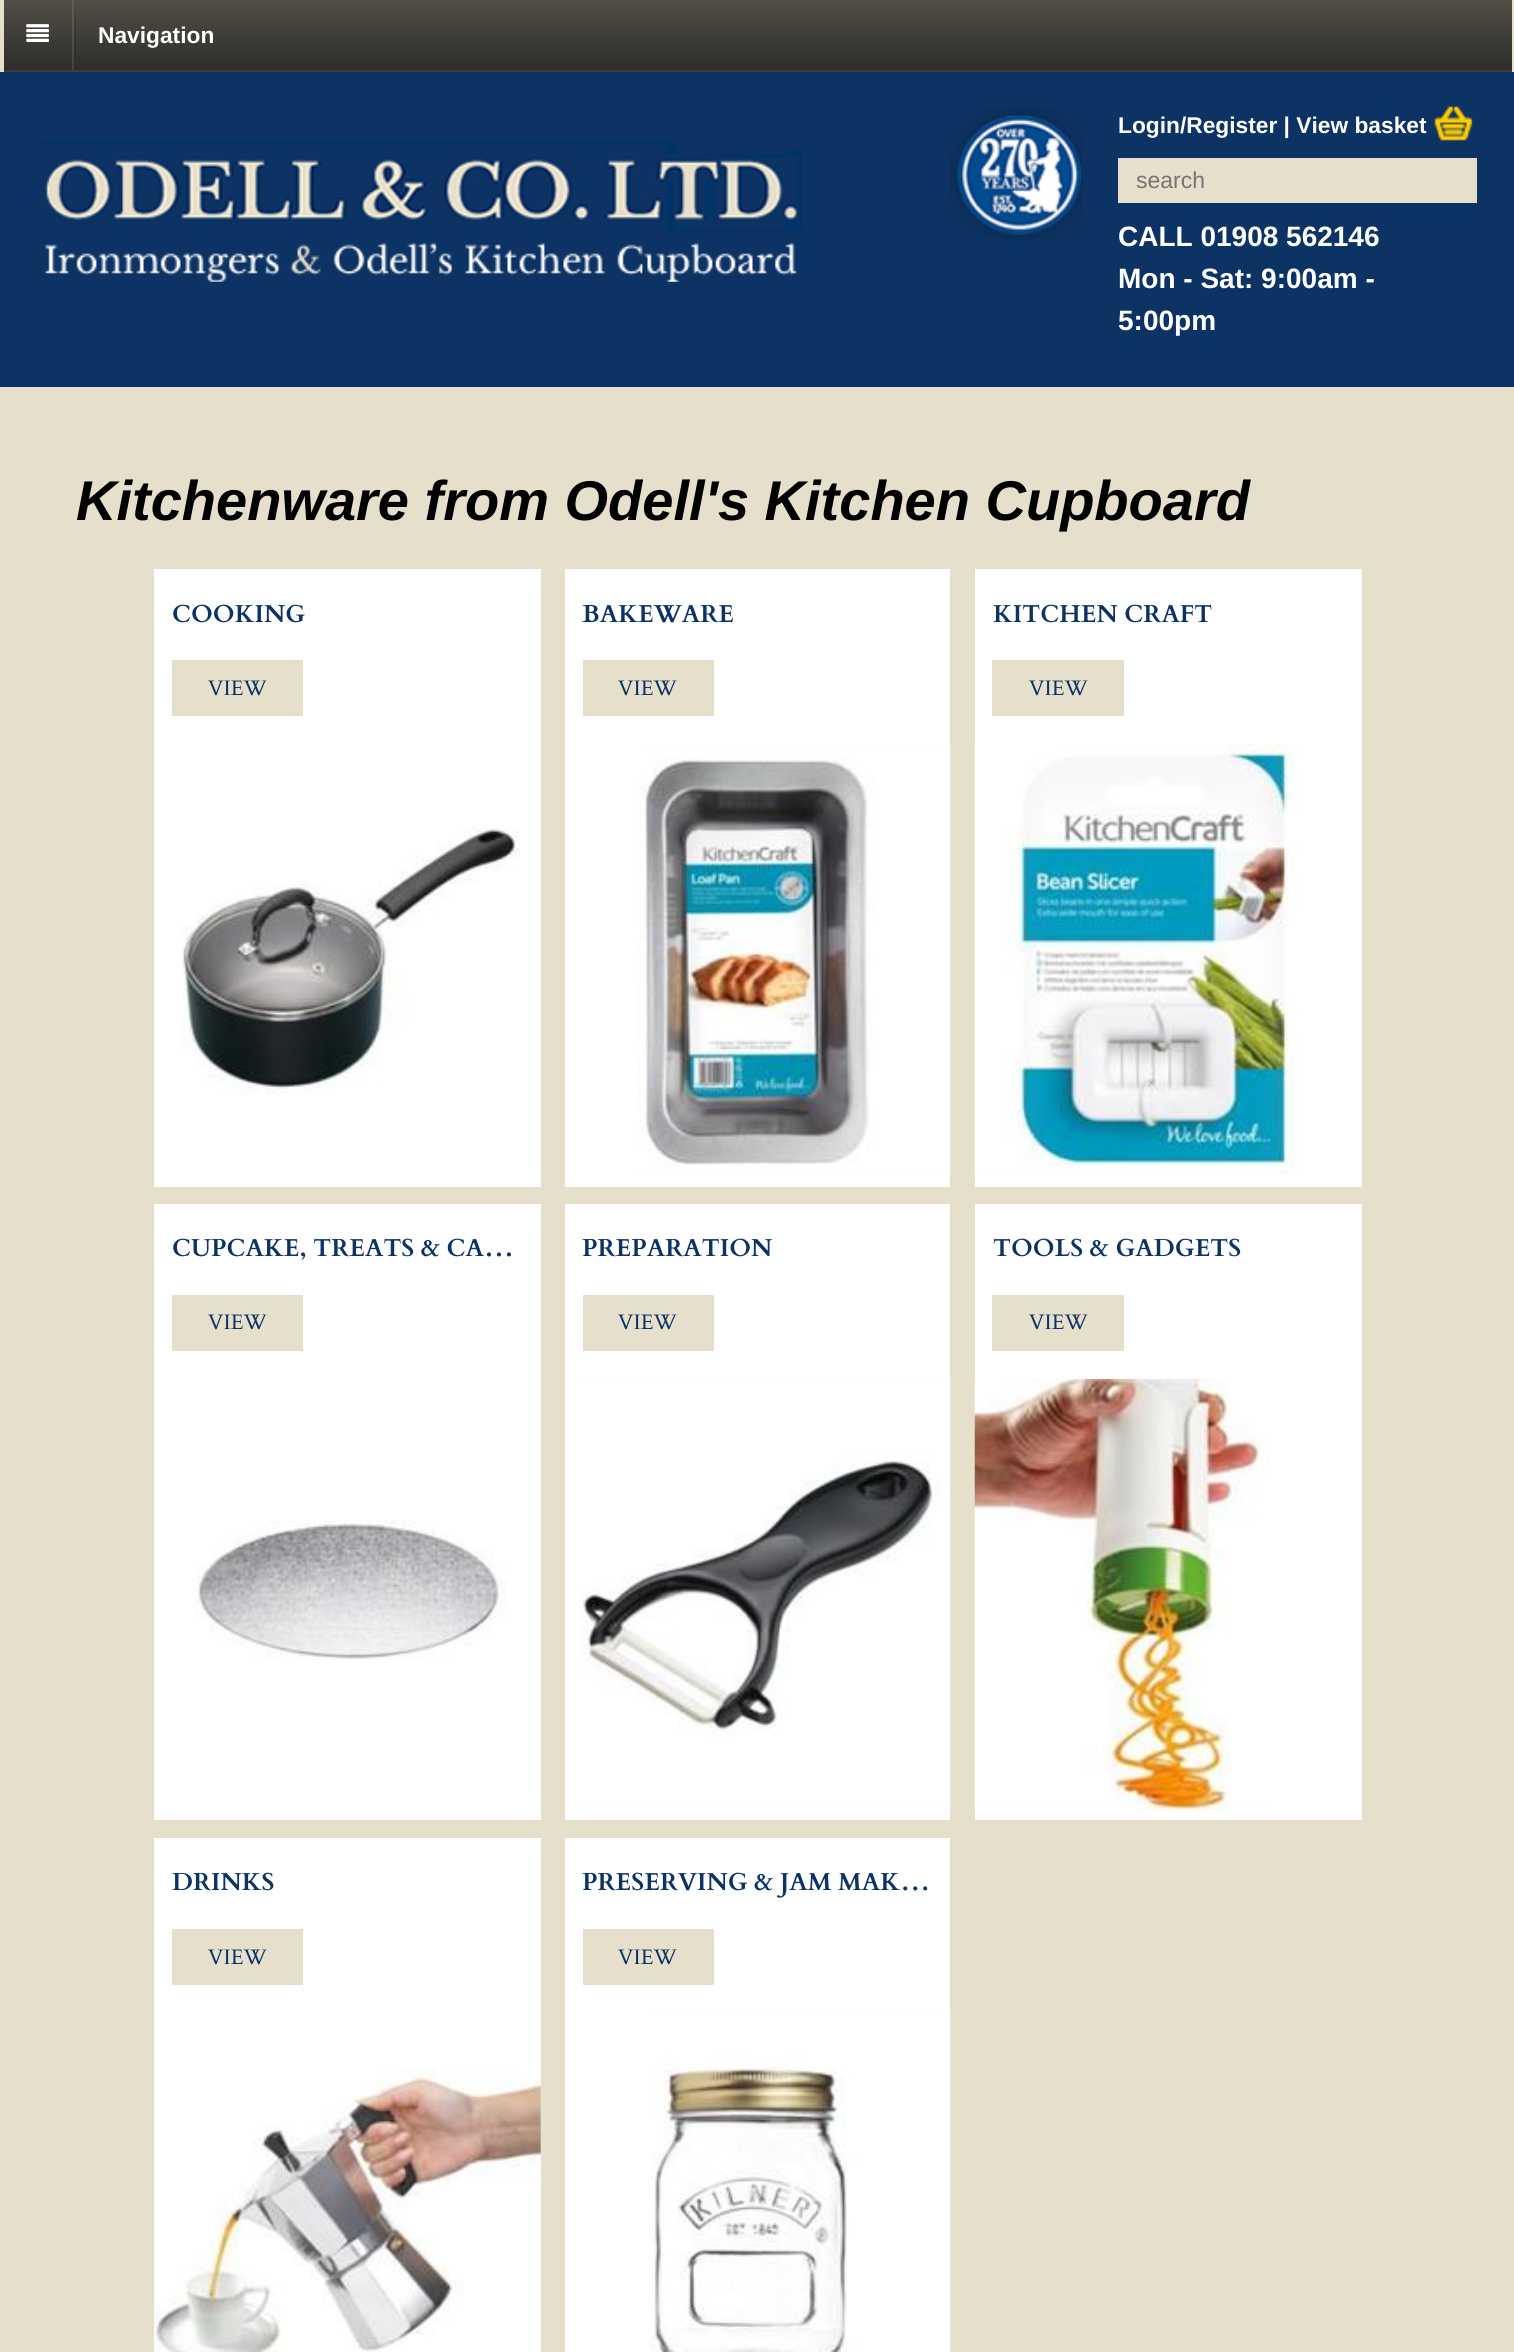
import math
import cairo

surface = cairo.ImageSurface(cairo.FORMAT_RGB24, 1514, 2352)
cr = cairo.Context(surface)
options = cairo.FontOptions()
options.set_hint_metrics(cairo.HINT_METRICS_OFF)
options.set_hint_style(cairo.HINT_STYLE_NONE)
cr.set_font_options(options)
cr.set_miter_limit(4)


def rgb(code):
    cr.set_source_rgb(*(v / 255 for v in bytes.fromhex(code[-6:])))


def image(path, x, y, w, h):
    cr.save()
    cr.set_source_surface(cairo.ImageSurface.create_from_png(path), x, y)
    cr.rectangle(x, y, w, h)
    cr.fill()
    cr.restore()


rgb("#e6dfcc")
cr.paint()
gradient = cairo.LinearGradient(758, 0, 758, 70)
gradient.add_color_stop_rgba(0, 0.318, 0.306, 0.278, 1)
gradient.add_color_stop_rgba(1, 0.18, 0.176, 0.161, 1)
cr.set_source(gradient)
cr.rectangle(4, 0, 1508, 70)
cr.fill()
gradient = cairo.LinearGradient(758, 0, 758, 70)
gradient.add_color_stop_rgba(0, 0.286, 0.275, 0.251, 1)
gradient.add_color_stop_rgba(1, 0.161, 0.161, 0.145, 1)
cr.set_source(gradient)
cr.rectangle(74, 11, 2, 49)
cr.fill()
gradient = cairo.LinearGradient(758, 0, 758, 70)
gradient.add_color_stop_rgba(0, 0.384, 0.376, 0.349, 1)
gradient.add_color_stop_rgba(1, 0.263, 0.259, 0.243, 1)
cr.set_source(gradient)
cr.rectangle(72, 0, 2, 70)
cr.fill()
rgb("#403e38")
cr.rectangle(4, 70, 1508, 2)
cr.fill()
image("img/1.png", 26, 24, 23, 18)
rgb("#0d3364")
cr.rectangle(0, 72, 1514, 315)
cr.fill()
image("img/2.png", 38, 142, 764, 140)
image("img/3.png", 950, 107, 133, 133)
image("img/4.png", 1434, 106, 39, 35)
for x, y, w, h, color in [
    (1118, 158, 359, 45, "#e6dfcc"),
    (154, 569, 387, 618, "#ffffff"),
    (172, 660, 131, 56, "#e6dfcc"),
]:
    rgb(color)
    cr.rectangle(x, y, w, h)
    cr.fill()
image("img/5.png", 182, 828, 338, 267)
rgb("#ffffff")
cr.rectangle(565, 569, 385, 618)
cr.fill()
rgb("#e6dfcc")
cr.rectangle(583, 660, 131, 56)
cr.fill()
image("img/6.png", 638, 744, 313, 430)
rgb("#ffffff")
cr.rectangle(975, 569, 387, 618)
cr.fill()
rgb("#e6dfcc")
cr.rectangle(992, 660, 132, 56)
cr.fill()
image("img/7.png", 974, 744, 324, 430)
rgb("#ffffff")
cr.rectangle(154, 1204, 387, 616)
cr.fill()
rgb("#e6dfcc")
cr.rectangle(172, 1295, 131, 56)
cr.fill()
image("img/8.png", 196, 1520, 310, 140)
rgb("#ffffff")
cr.rectangle(565, 1204, 385, 616)
cr.fill()
rgb("#e6dfcc")
cr.rectangle(583, 1295, 131, 56)
cr.fill()
image("img/9.png", 580, 1379, 371, 431)
rgb("#ffffff")
cr.rectangle(975, 1204, 387, 616)
cr.fill()
rgb("#e6dfcc")
cr.rectangle(992, 1295, 132, 56)
cr.fill()
image("img/10.png", 974, 1379, 296, 431)
rgb("#ffffff")
cr.rectangle(154, 1838, 387, 514)
cr.fill()
rgb("#e6dfcc")
cr.rectangle(172, 1929, 131, 56)
cr.fill()
image("img/11.png", 154, 2068, 387, 284)
rgb("#ffffff")
cr.rectangle(565, 1838, 385, 514)
cr.fill()
rgb("#e6dfcc")
cr.rectangle(583, 1929, 131, 56)
cr.fill()
image("img/12.png", 650, 2012, 301, 340)
cr.select_font_face("Liberation Sans", cairo.FONT_SLANT_NORMAL, cairo.FONT_WEIGHT_BOLD)
cr.set_font_size(22.75)
rgb("#ffffff")
cr.move_to(98, 43)
cr.show_text("Navigation")
cr.move_to(1118, 133)
cr.show_text("Login/Register | View basket")
cr.select_font_face("Liberation Sans")
cr.set_font_size(23)
rgb("#757575")
cr.move_to(1136, 188)
cr.show_text("search")
cr.select_font_face("Liberation Sans", cairo.FONT_SLANT_NORMAL, cairo.FONT_WEIGHT_BOLD)
cr.set_font_size(28)
rgb("#ffffff")
for x, y, s in [
    (1118, 246, "CALL 01908 562146"),
    (1118, 288, "Mon - Sat: 9:00am -"),
    (1118, 330, "5:00pm"),
]:
    cr.move_to(x, y)
    cr.show_text(s)
cr.select_font_face("Liberation Sans", cairo.FONT_SLANT_ITALIC, cairo.FONT_WEIGHT_BOLD)
cr.set_font_size(56)
rgb("#000000")
cr.move_to(76, 520)
cr.show_text("Kitchenware from Odell's Kitchen Cupboard")
cr.select_font_face("Cardo", cairo.FONT_SLANT_NORMAL, cairo.FONT_WEIGHT_BOLD)
cr.set_font_size(24.5)
rgb("#0d3364")
cr.move_to(172, 622)
cr.show_text("COOKING")
cr.select_font_face("Cardo")
cr.set_font_size(21)
cr.move_to(208, 695)
cr.show_text("VIEW")
cr.select_font_face("Cardo", cairo.FONT_SLANT_NORMAL, cairo.FONT_WEIGHT_BOLD)
cr.set_font_size(24.5)
cr.move_to(582, 622)
cr.show_text("BAKEWARE")
cr.select_font_face("Cardo")
cr.set_font_size(21)
cr.move_to(618, 695)
cr.show_text("VIEW")
cr.select_font_face("Cardo", cairo.FONT_SLANT_NORMAL, cairo.FONT_WEIGHT_BOLD)
cr.set_font_size(24.5)
cr.move_to(993, 622)
cr.show_text("KITCHEN CRAFT")
cr.select_font_face("Cardo")
cr.set_font_size(21)
cr.move_to(1029, 695)
cr.show_text("VIEW")
cr.select_font_face("Cardo", cairo.FONT_SLANT_NORMAL, cairo.FONT_WEIGHT_BOLD)
cr.set_font_size(24.5)
cr.move_to(172, 1256)
cr.show_text("CUPCAKE, TREATS & CA…")
cr.select_font_face("Cardo")
cr.set_font_size(21)
cr.move_to(208, 1329)
cr.show_text("VIEW")
cr.select_font_face("Cardo", cairo.FONT_SLANT_NORMAL, cairo.FONT_WEIGHT_BOLD)
cr.set_font_size(24.5)
cr.move_to(582, 1256)
cr.show_text("PREPARATION")
cr.select_font_face("Cardo")
cr.set_font_size(21)
cr.move_to(618, 1329)
cr.show_text("VIEW")
cr.select_font_face("Cardo", cairo.FONT_SLANT_NORMAL, cairo.FONT_WEIGHT_BOLD)
cr.set_font_size(24.5)
cr.move_to(993, 1256)
cr.show_text("TOOLS & GADGETS")
cr.select_font_face("Cardo")
cr.set_font_size(21)
cr.move_to(1029, 1329)
cr.show_text("VIEW")
cr.select_font_face("Cardo", cairo.FONT_SLANT_NORMAL, cairo.FONT_WEIGHT_BOLD)
cr.set_font_size(24.5)
cr.move_to(172, 1890)
cr.show_text("DRINKS")
cr.select_font_face("Cardo")
cr.set_font_size(21)
cr.move_to(208, 1964)
cr.show_text("VIEW")
cr.select_font_face("Cardo", cairo.FONT_SLANT_NORMAL, cairo.FONT_WEIGHT_BOLD)
cr.set_font_size(24.5)
cr.move_to(582, 1890)
cr.show_text("PRESERVING & JAM MAK…")
cr.select_font_face("Cardo")
cr.set_font_size(21)
cr.move_to(618, 1964)
cr.show_text("VIEW")
surface.write_to_png("page.png")
